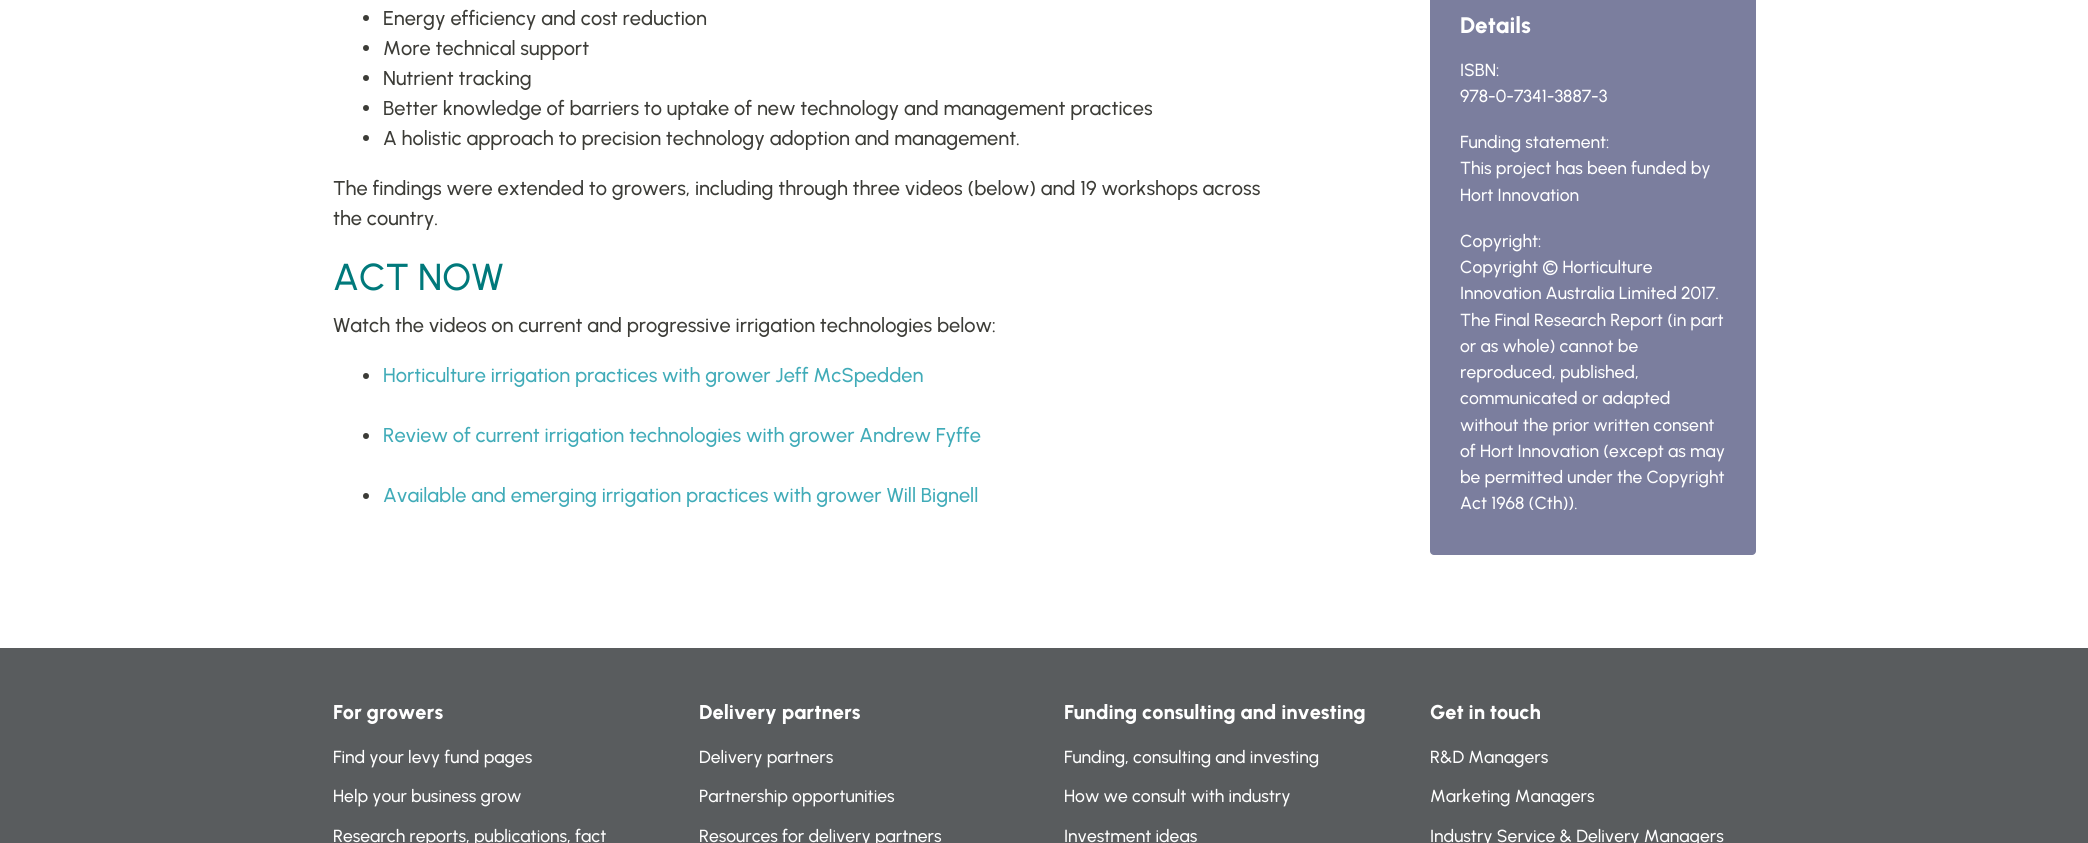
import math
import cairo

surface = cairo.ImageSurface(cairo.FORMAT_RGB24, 2088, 843)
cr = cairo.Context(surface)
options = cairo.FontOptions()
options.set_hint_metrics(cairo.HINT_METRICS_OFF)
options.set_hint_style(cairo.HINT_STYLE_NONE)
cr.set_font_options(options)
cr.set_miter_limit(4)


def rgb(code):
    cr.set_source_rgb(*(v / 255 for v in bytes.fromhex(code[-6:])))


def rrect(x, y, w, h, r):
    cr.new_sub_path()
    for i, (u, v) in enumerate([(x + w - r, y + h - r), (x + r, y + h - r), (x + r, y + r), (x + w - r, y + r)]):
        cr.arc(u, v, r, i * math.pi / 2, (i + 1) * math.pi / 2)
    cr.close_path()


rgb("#ffffff")
cr.paint()
rgb("#3c3c37")
cr.arc(366, 18, 3, 0, 2 * math.pi)
cr.fill()
cr.arc(366, 48, 3, 0, 2 * math.pi)
cr.fill()
cr.arc(366, 78, 3, 0, 2 * math.pi)
cr.fill()
cr.arc(366, 108, 3, 0, 2 * math.pi)
cr.fill()
cr.arc(366, 138, 3, 0, 2 * math.pi)
cr.fill()
cr.arc(366, 376, 3, 0, 2 * math.pi)
cr.fill()
cr.arc(366, 436, 3, 0, 2 * math.pi)
cr.fill()
cr.arc(366, 496, 3, 0, 2 * math.pi)
cr.fill()
rgb("#7b7e9e")
rrect(1430, -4, 326, 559, 4)
cr.fill()
rgb("#595c5e")
cr.rectangle(0, 648, 2088, 195)
cr.fill()
cr.select_font_face("Urbanist Medium")
cr.set_font_size(20)
rgb("#3c3c37")
for x, y, s in [
    (383, 25, "Energy efficiency and cost reduction"),
    (383, 55, "More technical support"),
    (383, 85, "Nutrient tracking"),
    (383, 115, "Better knowledge of barriers to uptake of new technology and management practices"),
    (383, 145, "A holistic approach to precision technology adoption and management."),
    (333, 195, "The findings were extended to growers, including through three videos (below) and 19 workshops across"),
    (333, 225, "the country."),
]:
    cr.move_to(x, y)
    cr.show_text(s)
cr.set_font_size(37.5)
rgb("#00797b")
cr.move_to(333, 290)
cr.show_text("ACT NOW")
cr.set_font_size(20)
rgb("#3c3c37")
cr.move_to(333, 332)
cr.show_text("Watch the videos on current and progressive irrigation technologies below:")
rgb("#40abb8")
for x, y, s in [
    (383, 382, "Horticulture irrigation practices with grower Jeff McSpedden"),
    (383, 442, "Review of current irrigation technologies with grower Andrew Fyffe"),
    (383, 502, "Available and emerging irrigation practices with grower Will Bignell"),
]:
    cr.move_to(x, y)
    cr.show_text(s)
cr.select_font_face("Urbanist ExtraBold")
cr.set_font_size(22.5)
rgb("#ffffff")
cr.move_to(1460, 33)
cr.show_text("Details")
cr.select_font_face("Urbanist Medium")
cr.set_font_size(17.5)
for x, y, s in [
    (1460, 76, "ISBN:"),
    (1460, 102, "978-0-7341-3887-3"),
    (1460, 148, "Funding statement:"),
    (1460, 174, "This project has been funded by"),
    (1460, 201, "Hort Innovation"),
    (1460, 247, "Copyright:"),
    (1460, 273, "Copyright © Horticulture"),
    (1460, 299, "Innovation Australia Limited 2017."),
    (1460, 326, "The Final Research Report (in part"),
    (1460, 352, "or as whole) cannot be"),
    (1460, 378, "reproduced, published,"),
    (1460, 404, "communicated or adapted"),
    (1460, 431, "without the prior written consent"),
    (1460, 457, "of Hort Innovation (except as may"),
    (1460, 483, "be permitted under the Copyright"),
    (1460, 509, "Act 1968 (Cth))."),
]:
    cr.move_to(x, y)
    cr.show_text(s)
cr.select_font_face("Urbanist ExtraBold")
cr.set_font_size(20)
cr.move_to(333, 719)
cr.show_text("For growers")
cr.select_font_face("Urbanist Medium")
cr.set_font_size(17.5)
for x, y, s in [
    (333, 763, "Find your levy fund pages"),
    (333, 802, "Help your business grow"),
    (333, 842, "Research reports, publications, fact"),
]:
    cr.move_to(x, y)
    cr.show_text(s)
cr.select_font_face("Urbanist ExtraBold")
cr.set_font_size(20)
cr.move_to(699, 719)
cr.show_text("Delivery partners")
cr.select_font_face("Urbanist Medium")
cr.set_font_size(17.5)
for x, y, s in [
    (699, 763, "Delivery partners"),
    (699, 802, "Partnership opportunities"),
    (699, 842, "Resources for delivery partners"),
]:
    cr.move_to(x, y)
    cr.show_text(s)
cr.select_font_face("Urbanist ExtraBold")
cr.set_font_size(20)
cr.move_to(1064, 719)
cr.show_text("Funding consulting and investing")
cr.select_font_face("Urbanist Medium")
cr.set_font_size(17.5)
for x, y, s in [
    (1064, 763, "Funding, consulting and investing"),
    (1064, 802, "How we consult with industry"),
    (1064, 842, "Investment ideas"),
]:
    cr.move_to(x, y)
    cr.show_text(s)
cr.select_font_face("Urbanist ExtraBold")
cr.set_font_size(20)
cr.move_to(1430, 719)
cr.show_text("Get in touch")
cr.select_font_face("Urbanist Medium")
cr.set_font_size(17.5)
for x, y, s in [
    (1430, 763, "R&D Managers"),
    (1430, 802, "Marketing Managers"),
    (1430, 842, "Industry Service & Delivery Managers"),
]:
    cr.move_to(x, y)
    cr.show_text(s)
surface.write_to_png("page.png")
